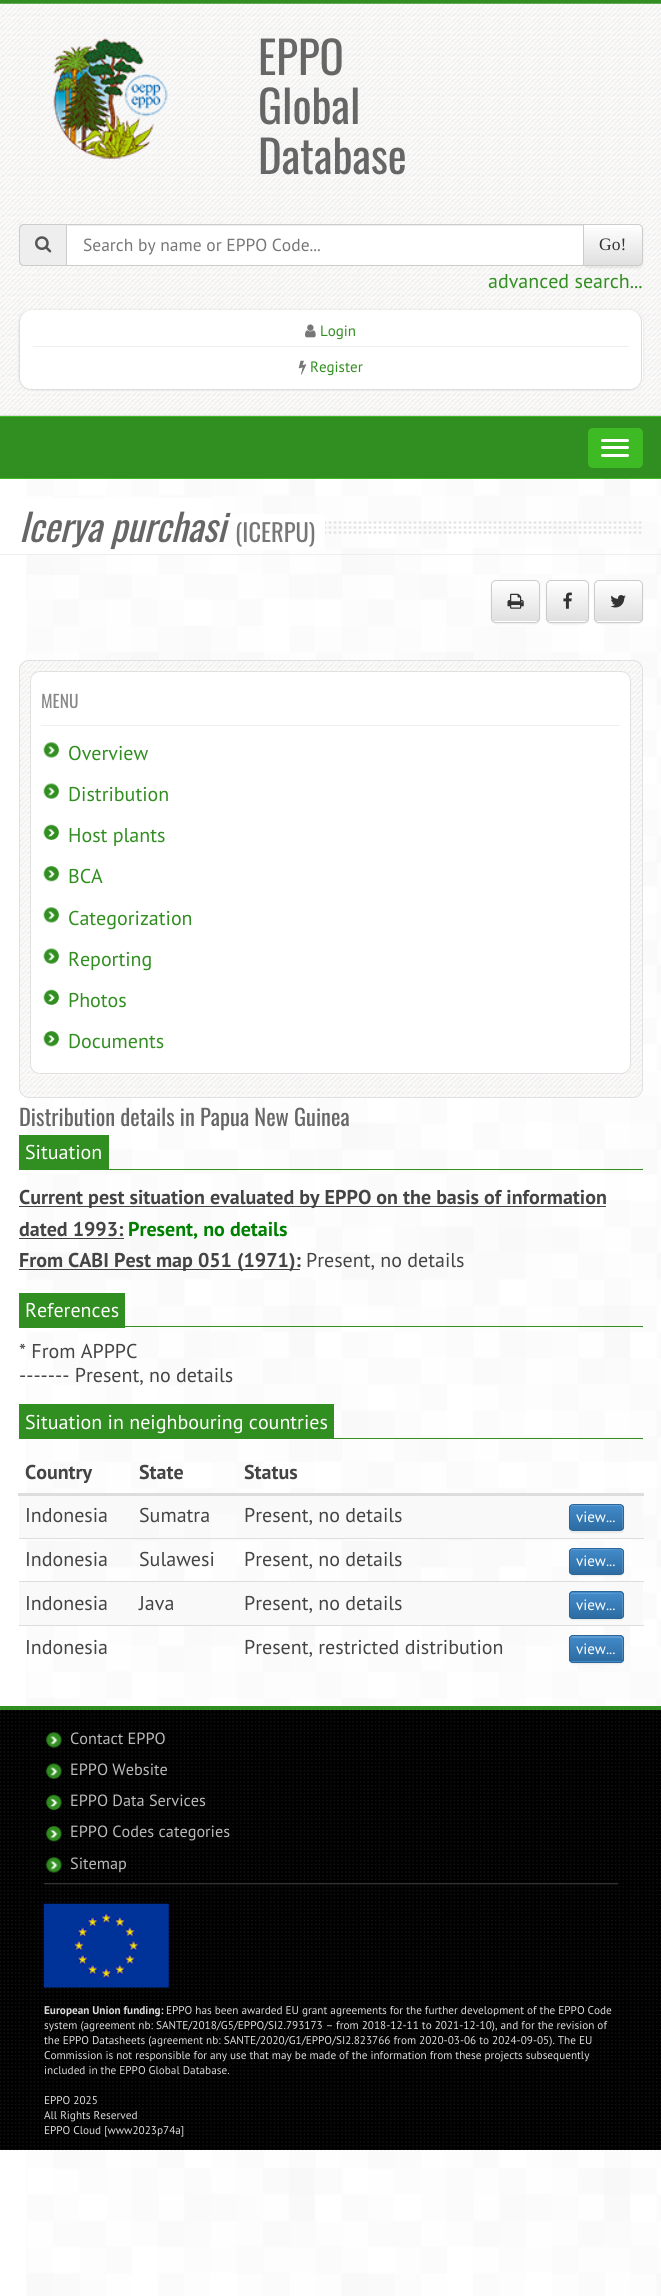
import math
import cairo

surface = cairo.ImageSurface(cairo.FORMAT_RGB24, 661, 2296)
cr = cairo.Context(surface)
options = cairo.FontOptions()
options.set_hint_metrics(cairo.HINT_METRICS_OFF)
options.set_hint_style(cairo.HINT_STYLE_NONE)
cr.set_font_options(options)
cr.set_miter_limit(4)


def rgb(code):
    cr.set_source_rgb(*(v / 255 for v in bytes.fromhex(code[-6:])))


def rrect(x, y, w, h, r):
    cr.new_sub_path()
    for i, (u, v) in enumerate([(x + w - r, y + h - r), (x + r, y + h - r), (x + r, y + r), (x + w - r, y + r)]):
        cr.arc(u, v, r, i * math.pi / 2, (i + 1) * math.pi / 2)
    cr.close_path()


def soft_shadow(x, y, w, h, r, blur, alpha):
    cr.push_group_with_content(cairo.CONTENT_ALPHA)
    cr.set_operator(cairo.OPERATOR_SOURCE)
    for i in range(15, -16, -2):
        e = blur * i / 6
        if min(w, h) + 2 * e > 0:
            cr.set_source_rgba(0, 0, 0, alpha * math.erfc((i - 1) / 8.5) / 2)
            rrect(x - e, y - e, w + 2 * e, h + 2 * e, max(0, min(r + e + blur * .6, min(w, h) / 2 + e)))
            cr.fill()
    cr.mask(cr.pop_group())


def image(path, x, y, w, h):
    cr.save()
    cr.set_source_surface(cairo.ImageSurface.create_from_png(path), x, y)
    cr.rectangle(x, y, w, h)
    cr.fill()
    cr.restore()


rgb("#ffffff")
cr.paint()
image("img/1.png", 26, 479, 635, 1817)
rgb("#318e20")
cr.rectangle(0, 0, 661, 4)
cr.fill()
image("img/2.png", 0, 3, 661, 412)
rgb("#dddddd")
cr.rectangle(0, 415, 661, 1)
cr.fill()
image("img/3.png", 53, 38, 115, 121)
rgb("#eeeeee")
cr.new_path()
cr.move_to(24, 224)
cr.line_to(66, 224)
cr.line_to(66, 266)
cr.line_to(24, 266)
cr.curve_to(21, 266, 19, 264, 19, 261)
cr.line_to(19, 229)
cr.curve_to(19, 226, 21, 224, 24, 224)
cr.close_path()
cr.fill()
rgb("#cccccc")
cr.set_fill_rule(cairo.FILL_RULE_EVEN_ODD)
cr.new_path()
cr.move_to(24, 224)
cr.line_to(66, 224)
cr.line_to(66, 266)
cr.line_to(24, 266)
cr.curve_to(21, 266, 19, 264, 19, 261)
cr.line_to(19, 229)
cr.curve_to(19, 226, 21, 224, 24, 224)
cr.close_path()
cr.move_to(24, 225)
cr.line_to(66, 225)
cr.line_to(66, 265)
cr.line_to(24, 265)
cr.curve_to(22, 265, 20, 263, 20, 261)
cr.line_to(20, 229)
cr.curve_to(20, 227, 22, 225, 24, 225)
cr.close_path()
cr.fill()
image("img/4.png", 35, 236, 17, 17)
rgb("#000000")
soft_shadow(583, 225, 60, 43, 5, 0.5, 0.07)
rgb("#ffffff")
cr.rectangle(67, 225, 516, 40)
cr.fill()
rgb("#ececec")
cr.rectangle(68, 225, 515, 1)
cr.fill()
cr.save()
cr.set_fill_rule(cairo.FILL_RULE_WINDING)
cr.new_path()
cr.move_to(583, 224)
cr.line_to(638, 224)
cr.curve_to(641, 224, 643, 226, 643, 229)
cr.line_to(643, 261)
cr.curve_to(643, 264, 641, 266, 638, 266)
cr.line_to(583, 266)
cr.close_path()
cr.clip()
gradient = cairo.LinearGradient(613, 225, 613, 265)
gradient.add_color_stop_rgba(0, 1, 1, 1, 1)
gradient.add_color_stop_rgba(1, 0.878, 0.878, 0.878, 1)
cr.set_source(gradient)
cr.rectangle(584, 225, 59, 40)
cr.fill()
cr.restore()
cr.new_path()
cr.move_to(583.5, 224.5)
cr.line_to(638, 224.5)
cr.curve_to(640.5, 224.5, 642.5, 226.5, 642.5, 229)
cr.line_to(642.5, 261)
cr.curve_to(642.5, 263.5, 640.5, 265.5, 638, 265.5)
cr.line_to(583.5, 265.5)
cr.close_path()
rgb("#cccccc")
cr.set_line_width(1)
cr.stroke()
cr.rectangle(66.5, 224.5, 517, 41)
cr.stroke()
rgb("#dddddd")
soft_shadow(19, 310, 624, 80, 13, 1, 1)
rgb("#ffffff")
rrect(19, 310, 624, 80, 13)
cr.fill()
rgb("#dddddd")
cr.new_path()
cr.move_to(31, 310)
cr.line_to(630, 310)
cr.curve_to(637, 310, 642, 316, 642, 322)
cr.line_to(642, 378)
cr.curve_to(642, 384, 637, 390, 630, 390)
cr.line_to(31, 390)
cr.curve_to(24, 390, 19, 384, 19, 378)
cr.line_to(19, 322)
cr.curve_to(19, 316, 24, 310, 31, 310)
cr.close_path()
cr.move_to(31, 310)
cr.line_to(630, 310)
cr.curve_to(636, 310, 641, 316, 641, 322)
cr.line_to(641, 378)
cr.curve_to(641, 384, 636, 389, 630, 389)
cr.line_to(31, 389)
cr.curve_to(25, 389, 20, 384, 20, 378)
cr.line_to(20, 322)
cr.curve_to(20, 316, 25, 310, 31, 310)
cr.close_path()
cr.fill()
image("img/5.png", 305, 324, 11, 14)
rgb("#eeeeee")
cr.rectangle(33, 346, 596, 1)
cr.fill()
image("img/6.png", 298, 360, 9, 15)
for x, y, w, h, color in [
    (0, 417, 661, 61, "#318e20"),
    (0, 416, 661, 1, "#3eba25"),
    (0, 478, 661, 1, "#3eba25"),
]:
    rgb(color)
    cr.rectangle(x, y, w, h)
    cr.fill()
rrect(588, 428, 55, 40, 5)
cr.fill()
rgb("#ffffff")
rrect(601, 439, 28, 3, 1.5)
cr.fill()
rrect(601, 446, 28, 3, 1.5)
cr.fill()
rrect(601, 454, 28, 3, 1.5)
cr.fill()
rgb("#eeeeee")
cr.rectangle(0, 554, 661, 1)
cr.fill()
image("img/7.png", 325, 521, 317, 13)
rgb("#ffffff")
cr.rectangle(26, 498, 185, 56)
cr.fill()
cr.rectangle(236, 514, 89, 36)
cr.fill()
rgb("#000000")
soft_shadow(491, 581, 49, 43, 5, 0.5, 0.07)
rgb("#ffffff")
rrect(491, 580, 49, 43, 5)
cr.fill()
cr.save()
cr.set_fill_rule(cairo.FILL_RULE_WINDING)
rrect(491, 580, 49, 43, 5)
cr.clip()
gradient = cairo.LinearGradient(516, 581, 516, 621)
gradient.add_color_stop_rgba(0, 1, 1, 1, 1)
gradient.add_color_stop_rgba(1, 0.878, 0.878, 0.878, 1)
cr.set_source(gradient)
cr.rectangle(491, 581, 49, 40)
cr.fill()
cr.restore()
rrect(491.5, 580.5, 48, 42, 4.5)
rgb("#cccccc")
cr.stroke()
image("img/8.png", 507, 593, 17, 16)
rgb("#000000")
soft_shadow(546, 581, 43, 43, 5, 0.5, 0.07)
rgb("#ffffff")
rrect(546, 580, 43, 43, 5)
cr.fill()
cr.save()
cr.set_fill_rule(cairo.FILL_RULE_WINDING)
rrect(546, 580, 43, 43, 5)
cr.clip()
gradient = cairo.LinearGradient(568, 581, 568, 621)
gradient.add_color_stop_rgba(0, 1, 1, 1, 1)
gradient.add_color_stop_rgba(1, 0.878, 0.878, 0.878, 1)
cr.set_source(gradient)
cr.rectangle(546, 581, 43, 40)
cr.fill()
cr.restore()
rrect(546.5, 580.5, 42, 42, 4.5)
rgb("#cccccc")
cr.stroke()
image("img/9.png", 563, 592, 9, 17)
rgb("#000000")
soft_shadow(594, 581, 49, 43, 5, 0.5, 0.07)
rgb("#ffffff")
rrect(594, 580, 49, 43, 5)
cr.fill()
cr.save()
cr.set_fill_rule(cairo.FILL_RULE_WINDING)
rrect(594, 580, 49, 43, 5)
cr.clip()
gradient = cairo.LinearGradient(618, 581, 618, 621)
gradient.add_color_stop_rgba(0, 1, 1, 1, 1)
gradient.add_color_stop_rgba(1, 0.878, 0.878, 0.878, 1)
cr.set_source(gradient)
cr.rectangle(594, 581, 49, 40)
cr.fill()
cr.restore()
rrect(594.5, 580.5, 48, 42, 4.5)
rgb("#cccccc")
cr.stroke()
image("img/10.png", 610, 595, 16, 13)
image("img/11.png", 19, 660, 623, 437)
rrect(19.5, 660.5, 623, 437, 9.5)
rgb("#e1e1e1")
cr.stroke()
rgb("#ffffff")
rrect(30.5, 671.5, 600, 402, 9.5)
cr.fill_preserve()
rgb("#e1e1e1")
cr.stroke()
rgb("#eeeeee")
cr.rectangle(41, 725, 579, 1)
cr.fill()
image("img/12.png", 43, 742, 16, 16)
image("img/13.png", 43, 783, 16, 16)
image("img/14.png", 43, 824, 16, 16)
image("img/15.png", 43, 866, 16, 16)
image("img/12.png", 43, 907, 16, 16)
image("img/13.png", 43, 948, 16, 16)
image("img/14.png", 43, 989, 16, 16)
image("img/15.png", 43, 1031, 16, 16)
for x, y, w, h, color in [
    (109, 1169, 534, 1, "#318e20"),
    (19, 1135, 90, 35, "#318e20"),
    (19, 1206, 587, 1, "#444444"),
    (19, 1238, 105, 1, "#444444"),
    (19, 1269, 281, 1, "#444444"),
    (125, 1326, 518, 1, "#318e20"),
    (19, 1293, 106, 35, "#318e20"),
    (334, 1438, 309, 1, "#318e20"),
    (19, 1404, 315, 35, "#318e20"),
    (18, 1493, 626, 3, "#dddddd"),
    (19, 1496, 114, 42, "#f9f9f9"),
    (133, 1496, 105, 18, "#f9f9f9"),
    (238, 1496, 405, 42, "#f9f9f9"),
]:
    rgb(color)
    cr.rectangle(x, y, w, h)
    cr.fill()
rgb("#000000")
soft_shadow(569, 1505, 55, 28, 4, 0.5, 0.07)
cr.save()
cr.set_fill_rule(cairo.FILL_RULE_WINDING)
rrect(569, 1504, 55, 27, 4)
cr.clip()
gradient = cairo.LinearGradient(596, 1505, 596, 1530)
gradient.add_color_stop_rgba(0, 0.259, 0.545, 0.792, 1)
gradient.add_color_stop_rgba(1, 0.176, 0.424, 0.635, 1)
cr.set_source(gradient)
cr.rectangle(569, 1505, 55, 25)
cr.fill()
cr.restore()
cr.set_source_rgba(1, 1, 1, 0.15)
cr.set_fill_rule(cairo.FILL_RULE_WINDING)
cr.new_path()
cr.move_to(572, 1506)
cr.line_to(620, 1506)
cr.curve_to(623, 1506, 622, 1514, 622, 1516)
cr.line_to(622, 1530)
cr.curve_to(624, 1528, 623, 1520, 623, 1518)
cr.curve_to(623, 1501, 625, 1505, 604, 1505)
cr.line_to(580, 1505)
cr.curve_to(575, 1505, 570, 1503, 570, 1509)
cr.curve_to(570, 1507, 571, 1506, 572, 1506)
cr.close_path()
cr.fill()
rrect(569.5, 1504.5, 54, 26, 3.5)
rgb("#2b669a")
cr.stroke()
rgb("#dddddd")
cr.rectangle(19, 1538, 625, 1)
cr.fill()
rgb("#000000")
soft_shadow(569, 1549, 55, 27, 4, 0.5, 0.07)
cr.save()
rrect(569, 1548, 55, 27, 4)
cr.clip()
gradient = cairo.LinearGradient(596, 1549, 596, 1574)
gradient.add_color_stop_rgba(0, 0.259, 0.545, 0.792, 1)
gradient.add_color_stop_rgba(1, 0.176, 0.424, 0.635, 1)
cr.set_source(gradient)
cr.rectangle(569, 1549, 55, 25)
cr.fill()
cr.restore()
cr.set_source_rgba(1, 1, 1, 0.15)
cr.new_path()
cr.move_to(572, 1550)
cr.line_to(604, 1550)
cr.curve_to(624, 1550, 622, 1545, 622, 1562)
cr.line_to(622, 1574)
cr.curve_to(622, 1573, 623, 1572, 623, 1572)
cr.line_to(623, 1552)
cr.curve_to(623, 1550, 622, 1549, 620, 1549)
cr.line_to(572, 1549)
cr.curve_to(571, 1549, 570, 1550, 570, 1552)
cr.curve_to(570, 1551, 571, 1550, 572, 1550)
cr.close_path()
cr.fill()
rrect(569.5, 1548.5, 54, 26, 3.5)
rgb("#2b669a")
cr.stroke()
rgb("#f9f9f9")
cr.rectangle(19, 1582, 624, 43)
cr.fill()
rgb("#dddddd")
cr.rectangle(19, 1581, 625, 1)
cr.fill()
rgb("#000000")
soft_shadow(569, 1593, 55, 27, 4, 0.5, 0.07)
rgb("#428bca")
rrect(569, 1591, 55, 28, 4)
cr.fill()
cr.save()
rrect(569, 1591, 55, 28, 4)
cr.clip()
gradient = cairo.LinearGradient(596, 1593, 596, 1618)
gradient.add_color_stop_rgba(0, 0.259, 0.545, 0.792, 1)
gradient.add_color_stop_rgba(1, 0.176, 0.424, 0.635, 1)
cr.set_source(gradient)
cr.rectangle(569, 1593, 55, 25)
cr.fill()
cr.restore()
cr.set_source_rgba(1, 1, 1, 0.15)
cr.new_path()
cr.move_to(572, 1594)
cr.line_to(604, 1594)
cr.curve_to(624, 1594, 622, 1589, 622, 1606)
cr.line_to(622, 1618)
cr.curve_to(622, 1617, 623, 1616, 623, 1616)
cr.line_to(623, 1596)
cr.curve_to(623, 1594, 622, 1593, 620, 1593)
cr.line_to(572, 1593)
cr.curve_to(571, 1593, 570, 1594, 570, 1596)
cr.curve_to(570, 1595, 571, 1594, 572, 1594)
cr.close_path()
cr.fill()
rrect(569.5, 1591.5, 54, 27, 3.5)
rgb("#2b669a")
cr.stroke()
rgb("#dddddd")
cr.rectangle(19, 1625, 625, 1)
cr.fill()
rgb("#000000")
soft_shadow(569, 1636, 55, 28, 4, 0.5, 0.07)
rgb("#428bca")
rrect(569, 1635, 55, 28, 4)
cr.fill()
cr.save()
rrect(569, 1635, 55, 28, 4)
cr.clip()
gradient = cairo.LinearGradient(596, 1636, 596, 1661)
gradient.add_color_stop_rgba(0, 0.259, 0.545, 0.792, 1)
gradient.add_color_stop_rgba(1, 0.176, 0.424, 0.635, 1)
cr.set_source(gradient)
cr.rectangle(569, 1636, 55, 25)
cr.fill()
cr.restore()
cr.set_source_rgba(1, 1, 1, 0.15)
cr.new_path()
cr.move_to(572, 1638)
cr.line_to(620, 1638)
cr.curve_to(623, 1638, 622, 1645, 622, 1647)
cr.line_to(622, 1661)
cr.curve_to(624, 1659, 623, 1651, 623, 1648)
cr.curve_to(623, 1632, 625, 1636, 604, 1636)
cr.line_to(580, 1636)
cr.curve_to(575, 1636, 570, 1634, 570, 1640)
cr.curve_to(570, 1639, 571, 1638, 572, 1638)
cr.close_path()
cr.fill()
rrect(569.5, 1635.5, 54, 27, 3.5)
rgb("#2b669a")
cr.stroke()
image("img/16.png", 0, 1710, 661, 440)
rgb("#318e20")
cr.rectangle(0, 1706, 661, 4)
cr.fill()
image("img/17.png", 46, 1732, 16, 16)
image("img/18.png", 46, 1763, 16, 16)
image("img/19.png", 46, 1794, 16, 16)
image("img/20.png", 46, 1826, 16, 16)
image("img/21.png", 46, 1857, 16, 16)
rgb("#333333")
cr.rectangle(44, 1883, 574, 1)
cr.fill()
rgb("#111111")
cr.rectangle(44, 1884, 574, 1)
cr.fill()
image("img/22.png", 43, 1903, 126, 85)
cr.select_font_face("Oswald")
cr.set_font_size(45)
rgb("#666666")
for x, y, s in [
    (258, 75, "EPPO"),
    (258, 124, "Global"),
    (258, 174, "Database"),
]:
    cr.move_to(x, y)
    cr.show_text(s)
cr.select_font_face("PT Sans")
cr.set_font_size(17.5)
rgb("#777777")
cr.move_to(83, 251)
cr.show_text("Search by name or EPPO Code...")
cr.select_font_face("Liberation Serif")
rgb("#333333")
cr.move_to(599, 250)
cr.show_text("Go!")
cr.select_font_face("PT Sans")
cr.set_font_size(20)
rgb("#318e20")
cr.move_to(488, 288)
cr.show_text("advanced search...")
cr.set_font_size(15)
cr.move_to(320, 336)
cr.show_text("Login")
cr.move_to(310, 372)
cr.show_text("Register")
cr.select_font_face("Oswald", cairo.FONT_SLANT_ITALIC)
cr.set_font_size(37.5)
rgb("#666666")
cr.move_to(19, 542)
cr.show_text("Icerya purchasi")
cr.select_font_face("Oswald")
cr.set_font_size(24.5)
rgb("#777777")
cr.move_to(235, 542)
cr.show_text("(ICERPU)")
cr.set_font_size(17.5)
rgb("#888888")
cr.move_to(41, 708)
cr.show_text("MENU")
cr.select_font_face("PT Sans")
cr.set_font_size(20)
rgb("#318e20")
for x, y, s in [
    (68, 760, "Overview"),
    (68, 801, "Distribution"),
    (68, 842, "Host plants"),
    (68, 883, "BCA"),
    (68, 925, "Categorization"),
    (68, 966, "Reporting"),
    (68, 1007, "Photos"),
    (68, 1048, "Documents"),
]:
    cr.move_to(x, y)
    cr.show_text(s)
cr.select_font_face("Oswald")
cr.set_font_size(22.5)
rgb("#666666")
cr.move_to(19, 1126)
cr.show_text("Distribution details in Papua New Guinea")
cr.select_font_face("PT Sans")
cr.set_font_size(20)
rgb("#ffffff")
cr.move_to(25, 1159)
cr.show_text("Situation")
cr.select_font_face("PT Sans", cairo.FONT_SLANT_NORMAL, cairo.FONT_WEIGHT_BOLD)
rgb("#444444")
cr.move_to(19, 1204)
cr.show_text("Current pest situation evaluated by EPPO on the basis of information")
cr.move_to(19, 1236)
cr.show_text("dated 1993:")
rgb("#008000")
cr.move_to(128, 1236)
cr.show_text("Present, no details")
rgb("#444444")
cr.move_to(19, 1267)
cr.show_text("From CABI Pest map 051 (1971):")
cr.select_font_face("PT Sans")
cr.move_to(306, 1267)
cr.show_text("Present, no details")
rgb("#ffffff")
cr.move_to(25, 1317)
cr.show_text("References")
rgb("#444444")
cr.move_to(19, 1358)
cr.show_text("* From APPPC")
cr.move_to(19, 1382)
cr.show_text("------- Present, no details")
rgb("#ffffff")
cr.move_to(25, 1429)
cr.show_text("Situation in neighbouring countries")
cr.select_font_face("PT Sans", cairo.FONT_SLANT_NORMAL, cairo.FONT_WEIGHT_BOLD)
rgb("#444444")
for x, y, s in [
    (25, 1479, "Country"),
    (139, 1479, "State"),
    (244, 1479, "Status"),
]:
    cr.move_to(x, y)
    cr.show_text(s)
cr.select_font_face("PT Sans")
for x, y, s in [
    (25, 1522, "Indonesia"),
    (139, 1522, "Sumatra"),
    (244, 1522, "Present, no details"),
]:
    cr.move_to(x, y)
    cr.show_text(s)
cr.set_font_size(15)
rgb("#ffffff")
cr.move_to(576, 1522)
cr.show_text("view...")
cr.set_font_size(20)
rgb("#444444")
for x, y, s in [
    (25, 1566, "Indonesia"),
    (139, 1566, "Sulawesi"),
    (244, 1566, "Present, no details"),
]:
    cr.move_to(x, y)
    cr.show_text(s)
cr.set_font_size(15)
rgb("#ffffff")
cr.move_to(576, 1566)
cr.show_text("view...")
cr.set_font_size(20)
rgb("#444444")
for x, y, s in [
    (25, 1610, "Indonesia"),
    (139, 1610, "Java"),
    (244, 1610, "Present, no details"),
]:
    cr.move_to(x, y)
    cr.show_text(s)
cr.set_font_size(15)
rgb("#ffffff")
cr.move_to(576, 1610)
cr.show_text("view...")
cr.set_font_size(20)
rgb("#444444")
cr.move_to(25, 1654)
cr.show_text("Indonesia")
cr.move_to(244, 1654)
cr.show_text("Present, restricted distribution")
cr.set_font_size(15)
rgb("#ffffff")
cr.move_to(576, 1654)
cr.show_text("view...")
cr.set_font_size(16.25)
rgb("#bbbbbb")
for x, y, s in [
    (70, 1744, "Contact EPPO"),
    (70, 1775, "EPPO Website"),
    (70, 1806, "EPPO Data Services"),
    (70, 1837, "EPPO Codes categories"),
    (70, 1869, "Sitemap"),
]:
    cr.move_to(x, y)
    cr.show_text(s)
cr.select_font_face("PT Sans", cairo.FONT_SLANT_NORMAL, cairo.FONT_WEIGHT_BOLD)
cr.set_font_size(11.25)
rgb("#dddddd")
cr.move_to(44, 2014)
cr.show_text("European Union funding:")
cr.select_font_face("PT Sans")
for x, y, s in [
    (166, 2014, "EPPO has been awarded EU grant agreements for the further development of the EPPO Code"),
    (44, 2029, "system (agreement nb: SANTE/2018/G5/EPPO/SI2.793173 – from 2018-12-11 to 2021-12-10), and for the revision of"),
    (44, 2044, "the EPPO Datasheets (agreement nb: SANTE/2020/G1/EPPO/SI2.823766 from 2020-03-06 to 2024-09-05). The EU"),
    (44, 2059, "Commission is not responsible for any use that may be made of the information from these projects subsequently"),
    (44, 2074, "included in the EPPO Global Database."),
    (44, 2104, "EPPO 2025"),
    (44, 2119, "All Rights Reserved"),
    (44, 2134, "EPPO Cloud [www2023p74a]"),
]:
    cr.move_to(x, y)
    cr.show_text(s)
surface.write_to_png("page.png")
